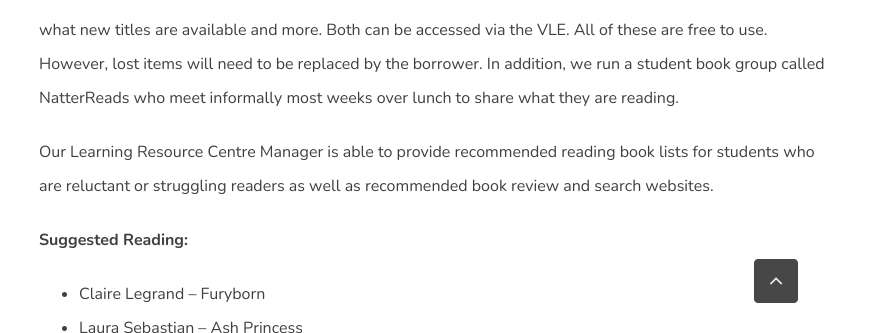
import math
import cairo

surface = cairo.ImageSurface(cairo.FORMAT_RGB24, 873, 333)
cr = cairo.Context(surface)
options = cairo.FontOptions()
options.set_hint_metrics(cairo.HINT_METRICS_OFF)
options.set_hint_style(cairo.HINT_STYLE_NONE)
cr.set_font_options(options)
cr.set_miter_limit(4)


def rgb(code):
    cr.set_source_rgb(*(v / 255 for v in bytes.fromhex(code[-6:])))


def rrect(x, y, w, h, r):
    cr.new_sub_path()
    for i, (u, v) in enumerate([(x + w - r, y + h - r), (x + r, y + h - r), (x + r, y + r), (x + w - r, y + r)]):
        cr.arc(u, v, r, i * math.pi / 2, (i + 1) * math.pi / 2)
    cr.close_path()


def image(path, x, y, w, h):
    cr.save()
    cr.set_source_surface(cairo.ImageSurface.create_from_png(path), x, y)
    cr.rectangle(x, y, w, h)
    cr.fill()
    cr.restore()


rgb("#ffffff")
cr.paint()
rgb("#3f3f3f")
cr.arc(64.5, 294.5, 2.5, 0, 2 * math.pi)
cr.fill()
cr.arc(64.5, 328.5, 2.5, 0, 2 * math.pi)
cr.fill()
rgb("#474747")
rrect(754, 259, 44, 44, 4)
cr.fill()
image("img/1.png", 770, 277, 13, 8)
cr.select_font_face("Nunito")
cr.set_font_size(16)
rgb("#3f3f3f")
for x, y, s in [
    (39, 35, "what new titles are available and more. Both can be accessed via the VLE. All of these are free to use."),
    (39, 69, "However, lost items will need to be replaced by the borrower. In addition, we run a student book group called"),
    (39, 103, "NatterReads who meet informally most weeks over lunch to share what they are reading."),
    (39, 157, "Our Learning Resource Centre Manager is able to provide recommended reading book lists for students who"),
    (39, 191, "are reluctant or struggling readers as well as recommended book review and search websites."),
]:
    cr.move_to(x, y)
    cr.show_text(s)
cr.select_font_face("Nunito", cairo.FONT_SLANT_NORMAL, cairo.FONT_WEIGHT_BOLD)
cr.move_to(39, 245)
cr.show_text("Suggested Reading:")
cr.select_font_face("Nunito")
cr.move_to(79, 299)
cr.show_text("Claire Legrand – Furyborn")
cr.move_to(79, 333)
cr.show_text("Laura Sebastian – Ash Princess")
surface.write_to_png("page.png")
